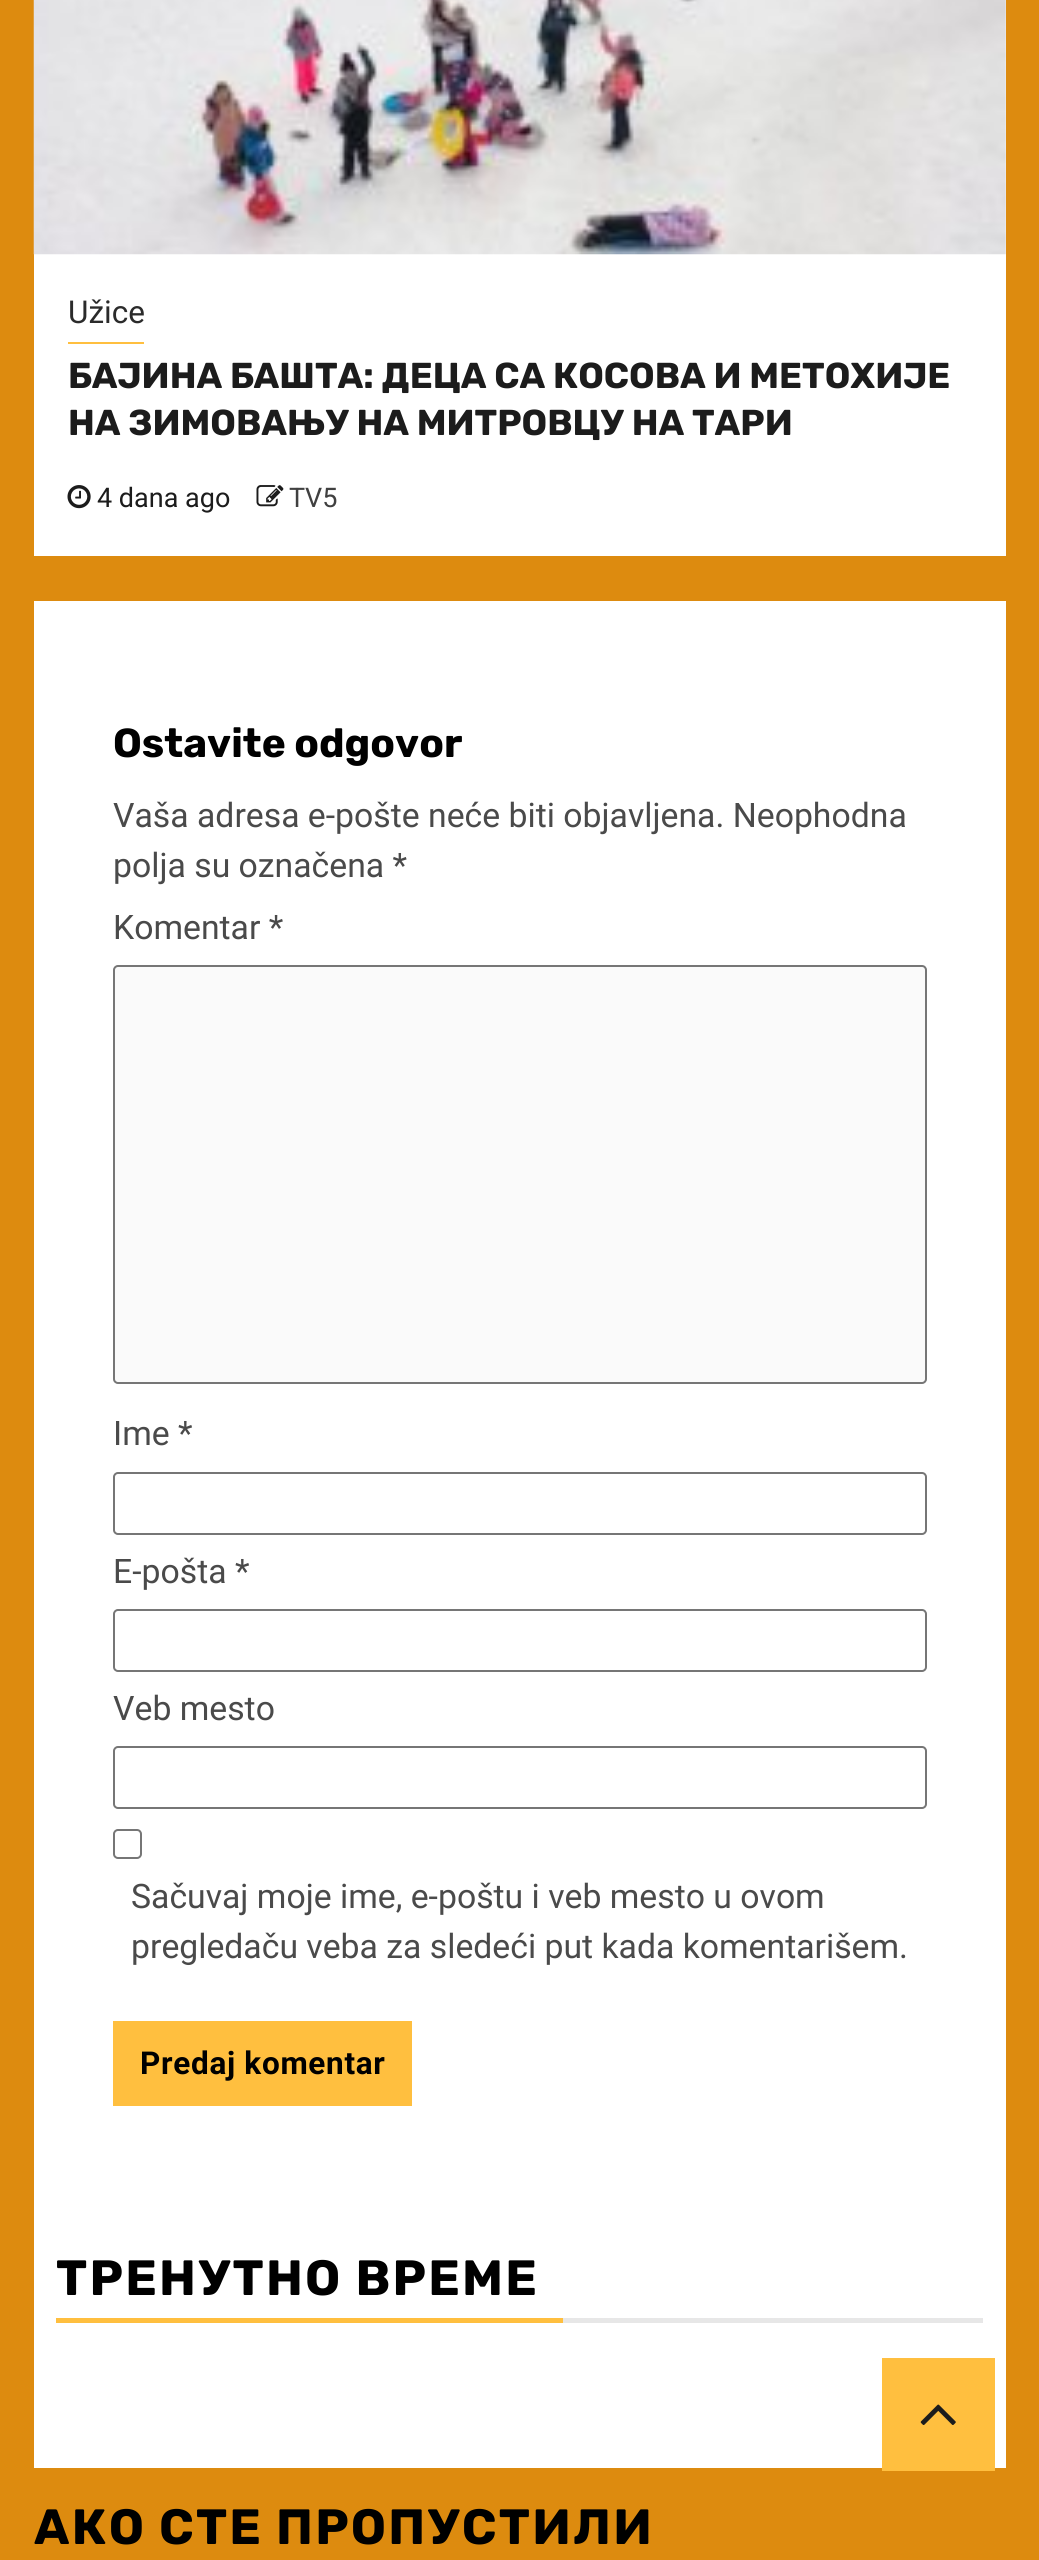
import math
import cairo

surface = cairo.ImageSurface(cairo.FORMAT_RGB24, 1039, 2560)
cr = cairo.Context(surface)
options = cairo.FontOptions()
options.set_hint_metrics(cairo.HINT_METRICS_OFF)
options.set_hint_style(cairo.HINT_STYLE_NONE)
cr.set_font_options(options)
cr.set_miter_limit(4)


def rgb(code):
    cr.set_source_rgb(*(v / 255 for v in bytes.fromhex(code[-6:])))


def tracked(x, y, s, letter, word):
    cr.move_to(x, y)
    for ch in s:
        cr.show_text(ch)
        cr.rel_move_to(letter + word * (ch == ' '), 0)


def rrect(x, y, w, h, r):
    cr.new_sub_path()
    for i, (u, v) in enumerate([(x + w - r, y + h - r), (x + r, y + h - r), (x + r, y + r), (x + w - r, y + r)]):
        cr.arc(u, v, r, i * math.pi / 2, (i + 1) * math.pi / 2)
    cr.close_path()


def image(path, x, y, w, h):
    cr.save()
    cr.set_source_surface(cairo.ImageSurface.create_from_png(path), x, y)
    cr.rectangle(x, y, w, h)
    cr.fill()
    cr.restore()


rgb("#dd8b0f")
cr.paint()
rgb("#ffffff")
cr.rectangle(34, 0, 972, 556)
cr.fill()
image("img/1.png", 33, 0, 973, 255)
rgb("#ffbf3f")
cr.rectangle(68, 342, 76, 2)
cr.fill()
image("img/2.png", 67, 485, 24, 24)
image("img/3.png", 256, 485, 28, 22)
rgb("#ffffff")
cr.rectangle(34, 601, 972, 1867)
cr.fill()
rgb("#fafafa")
rrect(114, 966, 812, 417, 4)
cr.fill_preserve()
rgb("#767676")
cr.stroke()
rrect(114, 1473, 812, 61, 4)
cr.stroke()
rrect(114, 1610, 812, 61, 4)
cr.stroke()
rrect(114, 1747, 812, 61, 4)
cr.stroke()
rrect(114, 1830, 27, 28, 4)
cr.stroke()
for x, y, w, h, color in [
    (113, 2021, 299, 85, "#ffbf3f"),
    (56, 2318, 507, 5, "#ffbf3f"),
    (563, 2318, 420, 5, "#e7e7e7"),
    (882, 2358, 113, 113, "#ffbf3f"),
]:
    rgb(color)
    cr.rectangle(x, y, w, h)
    cr.fill()
image("img/4.png", 920, 2404, 36, 21)
cr.select_font_face("Roboto")
cr.set_font_size(31.5)
rgb("#2b2b2b")
cr.move_to(68, 323)
cr.show_text("Užice")
cr.select_font_face("Rubik", cairo.FONT_SLANT_NORMAL, cairo.FONT_WEIGHT_BOLD)
cr.set_font_size(36)
rgb("#1c1c1c")
cr.move_to(68, 388)
cr.show_text("БАЈИНА БАШТА: ДЕЦА СА КОСОВА И МЕТОХИЈЕ")
cr.move_to(68, 435)
cr.show_text("НА ЗИМОВАЊУ НА МИТРОВЦУ НА ТАРИ")
cr.select_font_face("Roboto")
cr.set_font_size(27)
cr.move_to(97, 507)
cr.show_text("4 dana ago")
rgb("#404040")
cr.move_to(289, 507)
cr.show_text("TV5")
cr.select_font_face("Rubik", cairo.FONT_SLANT_NORMAL, cairo.FONT_WEIGHT_BOLD)
cr.set_font_size(40.5)
rgb("#000000")
cr.move_to(113, 757)
cr.show_text("Ostavite odgovor")
cr.select_font_face("Roboto")
cr.set_font_size(33.75)
rgb("#4a4a4a")
for x, y, s in [
    (113, 827, "Vaša adresa e-pošte neće biti objavljena. Neophodna"),
    (113, 877, "polja su označena *"),
    (113, 939, "Komentar *"),
    (113, 1445, "Ime *"),
    (113, 1583, "E-pošta *"),
    (113, 1720, "Veb mesto"),
    (131, 1908, "Sačuvaj moje ime, e-poštu i veb mesto u ovom"),
    (131, 1958, "pregledaču veba za sledeći put kada komentarišem."),
]:
    cr.move_to(x, y)
    cr.show_text(s)
cr.select_font_face("Roboto", cairo.FONT_SLANT_NORMAL, cairo.FONT_WEIGHT_BOLD)
cr.set_font_size(31.5)
rgb("#000000")
tracked(140, 2074, "Predaj komentar", 0.7, 0)
cr.select_font_face("Rubik", cairo.FONT_SLANT_NORMAL, cairo.FONT_WEIGHT_BOLD)
cr.set_font_size(49.5)
tracked(56, 2295, "ТРЕНУТНО ВРЕМЕ", 2.25, 0)
tracked(34, 2544, "АКО СТЕ ПРОПУСТИЛИ", 2.25, 0)
surface.write_to_png("page.png")
